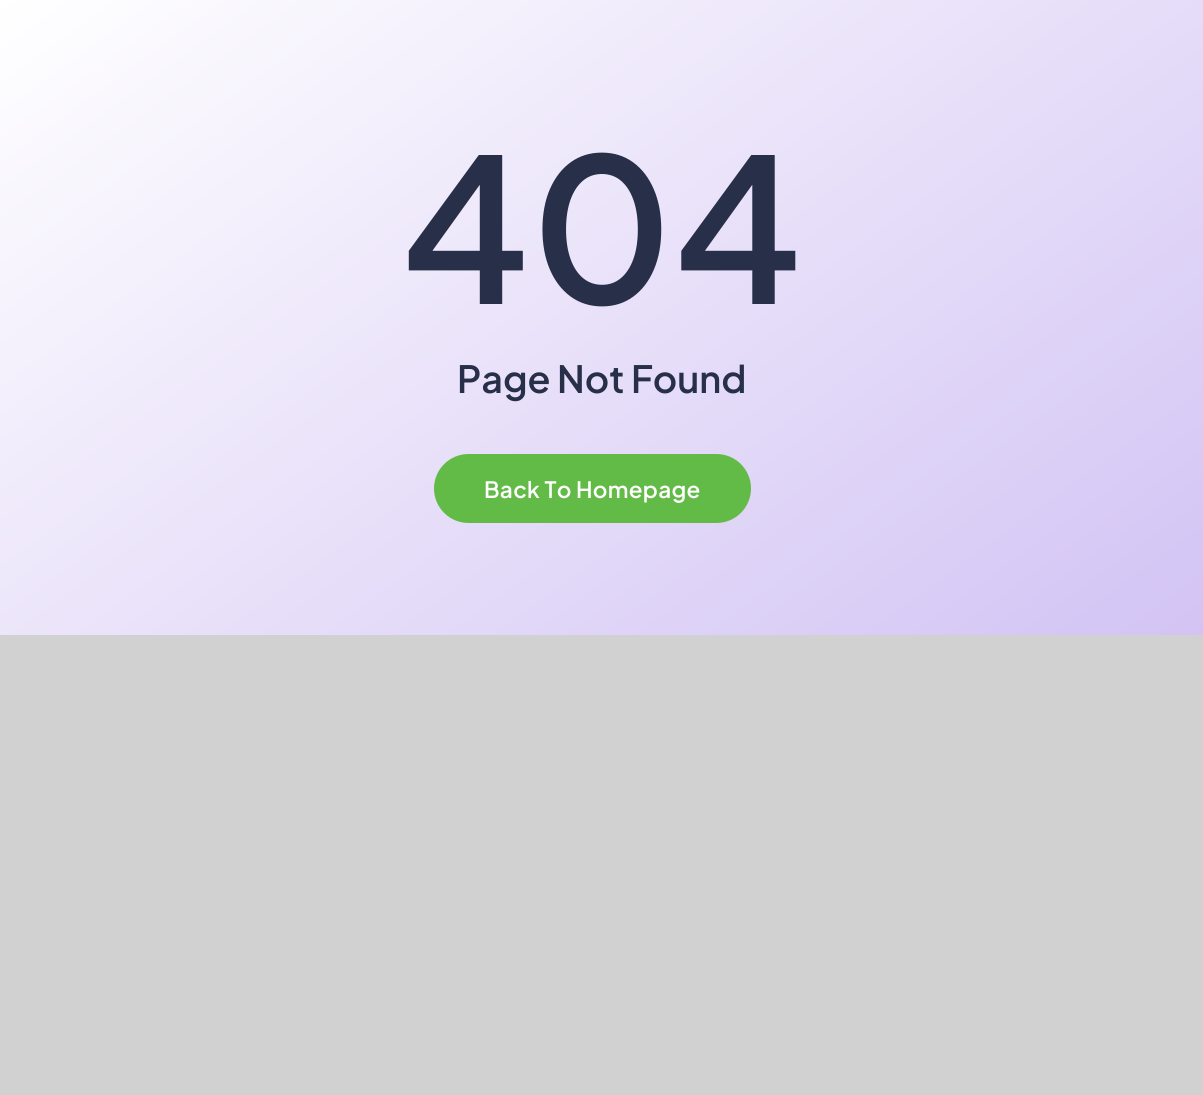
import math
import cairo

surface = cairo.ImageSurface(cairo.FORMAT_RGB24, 1203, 1095)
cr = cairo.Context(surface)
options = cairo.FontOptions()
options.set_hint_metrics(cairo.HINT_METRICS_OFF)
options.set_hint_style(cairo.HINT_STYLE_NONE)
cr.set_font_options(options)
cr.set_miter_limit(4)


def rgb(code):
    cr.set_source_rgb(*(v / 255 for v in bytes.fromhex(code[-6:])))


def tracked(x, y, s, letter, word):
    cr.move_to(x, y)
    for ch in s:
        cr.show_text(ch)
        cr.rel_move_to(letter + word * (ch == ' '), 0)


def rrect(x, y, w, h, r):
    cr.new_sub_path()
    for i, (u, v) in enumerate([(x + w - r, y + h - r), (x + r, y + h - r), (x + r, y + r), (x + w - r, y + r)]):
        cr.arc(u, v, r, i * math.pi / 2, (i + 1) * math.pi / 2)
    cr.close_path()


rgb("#d1d1d1")
cr.paint()
gradient = cairo.LinearGradient(243, -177, 961, 812)
gradient.add_color_stop_rgba(0, 1, 1, 1, 1)
gradient.add_color_stop_rgba(1, 0.824, 0.765, 0.957, 1)
cr.set_source(gradient)
cr.rectangle(0, 0, 1203, 635)
cr.fill()
rgb("#63bb47")
rrect(434, 454, 317, 69, 34.5)
cr.fill()
cr.select_font_face("Plus Jakarta Sans SemiBold")
cr.set_font_size(200)
rgb("#282f48")
cr.move_to(401, 304)
cr.show_text("404")
cr.set_font_size(37.5)
cr.move_to(457, 393)
cr.show_text("Page Not Found")
cr.set_font_size(22.5)
rgb("#ffffff")
tracked(484, 498, "Back To Homepage", 0.3, 0)
surface.write_to_png("page.png")
